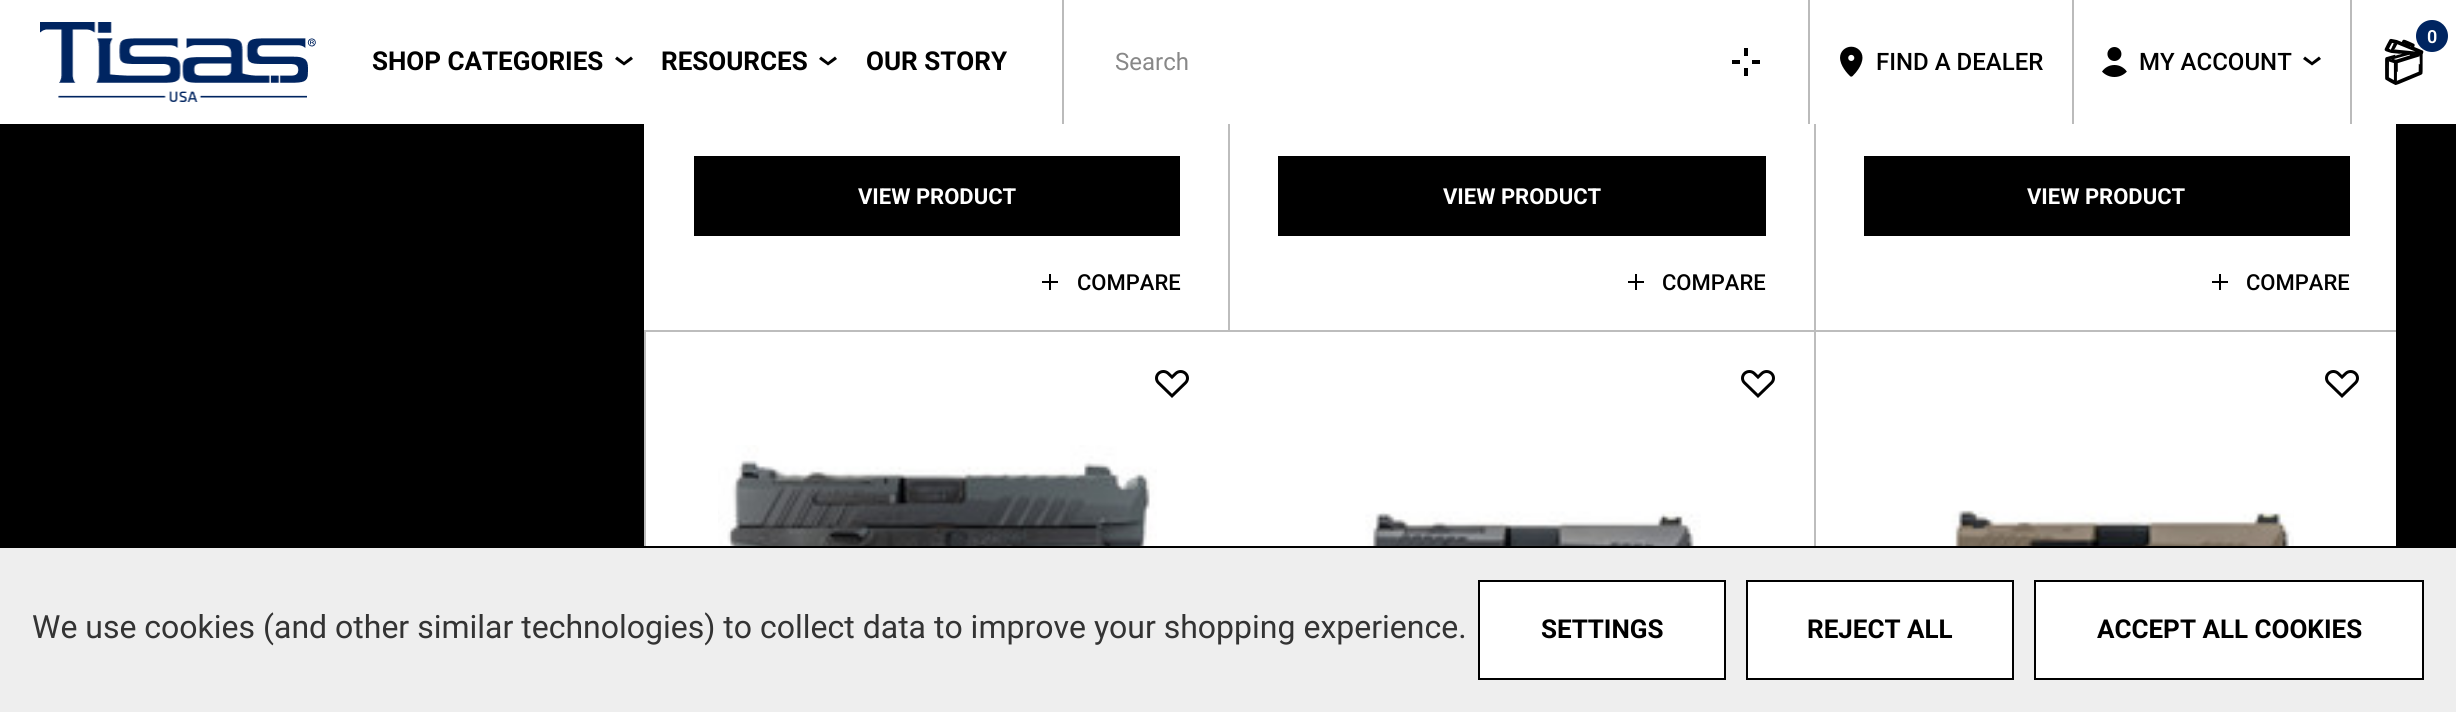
import math
import cairo

surface = cairo.ImageSurface(cairo.FORMAT_RGB24, 2456, 712)
cr = cairo.Context(surface)
options = cairo.FontOptions()
options.set_hint_metrics(cairo.HINT_METRICS_OFF)
options.set_hint_style(cairo.HINT_STYLE_NONE)
cr.set_font_options(options)
cr.set_miter_limit(4)


def rgb(code):
    cr.set_source_rgb(*(v / 255 for v in bytes.fromhex(code[-6:])))


def image(path, x, y, w, h):
    cr.save()
    cr.set_source_surface(cairo.ImageSurface.create_from_png(path), x, y)
    cr.rectangle(x, y, w, h)
    cr.fill()
    cr.restore()


rgb("#000000")
cr.paint()
for x, y, w, h, color in [
    (1230, 124, 584, 206, "#ffffff"),
    (1278, 156, 488, 80, "#000000"),
    (1635, 274, 2, 16, "#000000"),
    (1628, 281, 16, 2, "#000000"),
]:
    rgb(color)
    cr.rectangle(x, y, w, h)
    cr.fill()
cr.rectangle(1229, -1, 586, 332)
rgb("#bdbdbd")
cr.stroke()
for x, y, w, h, color in [
    (1816, 124, 580, 206, "#ffffff"),
    (1864, 156, 486, 80, "#000000"),
    (2219, 274, 2, 16, "#000000"),
    (2212, 281, 16, 2, "#000000"),
]:
    rgb(color)
    cr.rectangle(x, y, w, h)
    cr.fill()
cr.save()
cr.rectangle(1814, 0, 582, 332)
cr.clip()
cr.rectangle(1815, -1, 584, 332)
rgb("#bdbdbd")
cr.stroke()
cr.restore()
rgb("#ffffff")
cr.rectangle(0, 0, 2456, 124)
cr.fill()
image("img/1.png", 40, 22, 276, 80)
rgb("#000000")
cr.set_fill_rule(cairo.FILL_RULE_EVEN_ODD)
cr.new_path()
cr.move_to(615, 59)
cr.line_to(617, 56.5)
cr.line_to(624, 62)
cr.line_to(631, 56.5)
cr.line_to(633, 59)
cr.line_to(624, 65.5)
cr.close_path()
cr.fill()
cr.new_path()
cr.move_to(819, 59)
cr.line_to(821, 56.5)
cr.line_to(828, 62)
cr.line_to(835, 56.5)
cr.line_to(837, 59)
cr.line_to(828, 65.5)
cr.close_path()
cr.fill()
for x, y, w, h, color in [
    (1808, 0, 2, 124, "#bbbbbb"),
    (1062, 0, 2, 124, "#bbbbbb"),
    (1744, 48, 4, 8, "#000000"),
    (1744, 68, 4, 8, "#000000"),
    (1732, 60, 8, 4, "#000000"),
    (1752, 60, 8, 4, "#000000"),
]:
    rgb(color)
    cr.rectangle(x, y, w, h)
    cr.fill()
image("img/2.png", 2384, 38, 40, 47)
rgb("#002561")
cr.arc(2432, 36, 16, 0, 2 * math.pi)
cr.fill()
rgb("#bbbbbb")
cr.rectangle(2072, 0, 2, 124)
cr.fill()
image("img/3.png", 1840, 46, 23, 31)
cr.rectangle(2350, 0, 2, 124)
cr.fill()
image("img/4.png", 2102, 47, 25, 30)
rgb("#000000")
cr.new_path()
cr.move_to(2303, 59)
cr.line_to(2305, 56.5)
cr.line_to(2312, 62)
cr.line_to(2319, 56.5)
cr.line_to(2321, 59)
cr.line_to(2312, 65.5)
cr.close_path()
cr.fill()
for x, y, w, h, color in [
    (644, 124, 584, 206, "#ffffff"),
    (694, 156, 486, 80, "#000000"),
    (1049, 274, 2, 16, "#000000"),
    (1042, 281, 16, 2, "#000000"),
    (646, 332, 582, 214, "#ffffff"),
]:
    rgb(color)
    cr.rectangle(x, y, w, h)
    cr.fill()
image("img/5.png", 1155, 370, 34, 28)
image("img/6.png", 718, 445, 439, 101)
cr.rectangle(645, 331, 584, 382)
rgb("#bdbdbd")
cr.stroke()
rgb("#ffffff")
cr.rectangle(1228, 332, 586, 214)
cr.fill()
image("img/5.png", 1741, 370, 34, 28)
image("img/7.png", 1365, 511, 336, 35)
cr.rectangle(1816, 332, 580, 214)
cr.fill()
image("img/5.png", 2325, 370, 34, 28)
image("img/8.png", 1946, 510, 348, 36)
cr.save()
cr.set_fill_rule(cairo.FILL_RULE_WINDING)
cr.rectangle(1814, 330, 582, 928)
cr.clip()
cr.rectangle(1815, 331, 584, 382)
rgb("#bdbdbd")
cr.stroke()
cr.restore()
rgb("#eeeeee")
cr.rectangle(0, 548, 2456, 164)
cr.fill()
rgb("#000000")
cr.rectangle(644, 546, 1172, 2)
cr.fill()
rgb("#ffffff")
cr.rectangle(1479, 581, 246, 98)
cr.fill_preserve()
rgb("#000000")
cr.stroke()
rgb("#ffffff")
cr.rectangle(1747, 581, 266, 98)
cr.fill_preserve()
rgb("#000000")
cr.stroke()
rgb("#ffffff")
cr.rectangle(2035, 581, 388, 98)
cr.fill_preserve()
rgb("#000000")
cr.stroke()
cr.select_font_face("Roboto", cairo.FONT_SLANT_NORMAL, cairo.FONT_WEIGHT_BOLD)
cr.set_font_size(26)
for x, y, s in [
    (372, 70, "SHOP CATEGORIES"),
    (661, 70, "RESOURCES"),
    (866, 70, "OUR STORY"),
]:
    cr.move_to(x, y)
    cr.show_text(s)
cr.select_font_face("Roboto")
cr.set_font_size(24)
rgb("#888888")
cr.move_to(1115, 70)
cr.show_text("Search")
cr.select_font_face("Roboto SemiBold")
cr.set_font_size(18)
rgb("#ffffff")
cr.move_to(2427, 43)
cr.show_text("0")
cr.select_font_face("Roboto Medium")
cr.set_font_size(24)
rgb("#000000")
cr.move_to(1876, 70)
cr.show_text("FIND A DEALER")
cr.move_to(2139, 70)
cr.show_text("MY ACCOUNT")
cr.select_font_face("Roboto", cairo.FONT_SLANT_NORMAL, cairo.FONT_WEIGHT_BOLD)
cr.set_font_size(22)
rgb("#ffffff")
cr.move_to(858, 204)
cr.show_text("VIEW PRODUCT")
cr.select_font_face("Roboto Medium")
rgb("#000000")
cr.move_to(1077, 290)
cr.show_text("COMPARE")
cr.select_font_face("Roboto", cairo.FONT_SLANT_NORMAL, cairo.FONT_WEIGHT_BOLD)
rgb("#ffffff")
cr.move_to(1443, 204)
cr.show_text("VIEW PRODUCT")
cr.select_font_face("Roboto Medium")
rgb("#000000")
cr.move_to(1662, 290)
cr.show_text("COMPARE")
cr.select_font_face("Roboto", cairo.FONT_SLANT_NORMAL, cairo.FONT_WEIGHT_BOLD)
rgb("#ffffff")
cr.move_to(2027, 204)
cr.show_text("VIEW PRODUCT")
cr.select_font_face("Roboto Medium")
rgb("#000000")
cr.move_to(2246, 290)
cr.show_text("COMPARE")
cr.select_font_face("Roboto")
cr.set_font_size(32)
rgb("#333333")
cr.move_to(32, 638)
cr.show_text("We use cookies (and other similar technologies) to collect data to improve your shopping experience.")
cr.select_font_face("Roboto", cairo.FONT_SLANT_NORMAL, cairo.FONT_WEIGHT_BOLD)
cr.set_font_size(26)
rgb("#000000")
for x, y, s in [
    (1541, 638, "SETTINGS"),
    (1807, 638, "REJECT ALL"),
    (2097, 638, "ACCEPT ALL COOKIES"),
]:
    cr.move_to(x, y)
    cr.show_text(s)
surface.write_to_png("page.png")
